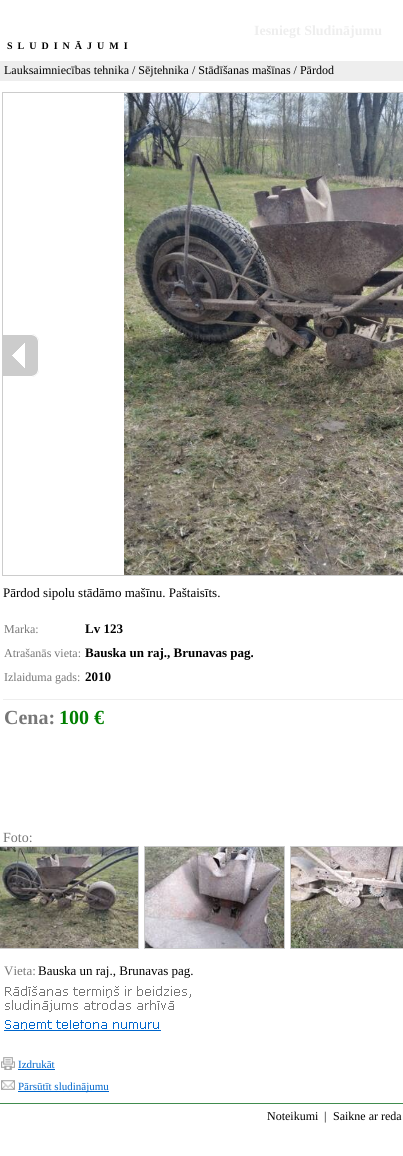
import math
import cairo

surface = cairo.ImageSurface(cairo.FORMAT_RGB24, 403, 1156)
cr = cairo.Context(surface)
options = cairo.FontOptions()
options.set_hint_metrics(cairo.HINT_METRICS_OFF)
options.set_hint_style(cairo.HINT_STYLE_NONE)
cr.set_font_options(options)
cr.set_miter_limit(4)


def rgb(code):
    cr.set_source_rgb(*(v / 255 for v in bytes.fromhex(code[-6:])))


def tracked(x, y, s, letter, word):
    cr.move_to(x, y)
    for ch in s:
        cr.show_text(ch)
        cr.rel_move_to(letter + word * (ch == ' '), 0)


def image(path, x, y, w, h):
    cr.save()
    cr.set_source_surface(cairo.ImageSurface.create_from_png(path), x, y)
    cr.rectangle(x, y, w, h)
    cr.fill()
    cr.restore()


rgb("#ffffff")
cr.paint()
rgb("#eeeeee")
cr.rectangle(0, 61, 403, 20)
cr.fill()
cr.rectangle(2.5, 92.5, 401, 483)
rgb("#cccccc")
cr.set_line_width(1)
cr.stroke()
image("img/1.png", 3, 334, 36, 43)
image("img/2.png", 124, 93, 279, 482)
rgb("#eeeeee")
cr.rectangle(3, 699, 400, 1)
cr.fill()
cr.rectangle(-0.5, 846.5, 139, 102)
rgb("#cccccc")
cr.stroke()
image("img/3.png", 0, 847, 138, 101)
cr.rectangle(144.5, 846.5, 140, 102)
cr.stroke()
image("img/4.png", 145, 847, 139, 101)
cr.rectangle(290.5, 846.5, 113, 102)
cr.stroke()
image("img/5.png", 291, 847, 112, 101)
image("img/6.png", 5, 986, 186, 26)
image("img/7.png", 4, 1020, 157, 11)
image("img/8.png", 1, 1057, 14, 13)
rgb("#0066cc")
cr.rectangle(18, 1069, 37, 1)
cr.fill()
image("img/9.png", 1, 1080, 14, 10)
cr.rectangle(18, 1091, 91, 1)
cr.fill()
rgb("#418c4e")
cr.rectangle(0, 1103, 403, 1)
cr.fill()
cr.select_font_face("Liberation Serif", cairo.FONT_SLANT_NORMAL, cairo.FONT_WEIGHT_BOLD)
cr.set_font_size(14)
rgb("#eeeeee")
cr.move_to(254, 35)
cr.show_text("Iesniegt Sludinājumu")
cr.set_font_size(10)
rgb("#000000")
tracked(7, 49, "SLUDINĀJUMI", 5, 0)
cr.select_font_face("Liberation Serif")
cr.set_font_size(12)
cr.move_to(4, 74)
cr.show_text("Lauksaimniecības tehnika / Sējtehnika / Stādīšanas mašīnas / Pārdod")
cr.set_font_size(13)
cr.move_to(3, 597)
cr.show_text("Pārdod sipolu stādāmo mašīnu. Paštaisīts.")
cr.set_font_size(12)
rgb("#777777")
cr.move_to(4, 633)
cr.show_text("Marka:")
cr.select_font_face("Liberation Serif", cairo.FONT_SLANT_NORMAL, cairo.FONT_WEIGHT_BOLD)
cr.set_font_size(13)
rgb("#000000")
cr.move_to(85, 633)
cr.show_text("Lv 123")
cr.select_font_face("Liberation Serif")
cr.set_font_size(12)
rgb("#777777")
cr.move_to(4, 657)
cr.show_text("Atrašanās vieta:")
cr.select_font_face("Liberation Serif", cairo.FONT_SLANT_NORMAL, cairo.FONT_WEIGHT_BOLD)
cr.set_font_size(13)
rgb("#000000")
cr.move_to(85, 657)
cr.show_text("Bauska un raj., Brunavas pag.")
cr.select_font_face("Liberation Serif")
cr.set_font_size(12)
rgb("#777777")
cr.move_to(4, 681)
cr.show_text("Izlaiduma gads:")
cr.select_font_face("Liberation Serif", cairo.FONT_SLANT_NORMAL, cairo.FONT_WEIGHT_BOLD)
cr.set_font_size(13)
rgb("#000000")
cr.move_to(85, 681)
cr.show_text("2010")
cr.set_font_size(20)
rgb("#777777")
cr.move_to(4, 724)
cr.show_text("Cena:")
rgb("#008000")
cr.move_to(59, 724)
cr.show_text("100 €")
cr.select_font_face("Liberation Serif")
cr.set_font_size(14)
rgb("#777777")
cr.move_to(3, 842)
cr.show_text("Foto:")
cr.set_font_size(13)
cr.move_to(4, 975)
cr.show_text("Vieta:")
rgb("#000000")
cr.move_to(38, 975)
cr.show_text("Bauska un raj., Brunavas pag.")
cr.set_font_size(11)
rgb("#0066cc")
cr.move_to(18, 1068)
cr.show_text("Izdrukāt")
cr.move_to(18, 1090)
cr.show_text("Pārsūtīt sludinājumu")
cr.set_font_size(12)
rgb("#000000")
for x, y, s in [
    (267, 1120, "Noteikumi"),
    (324, 1120, "|"),
    (333, 1120, "Saikne ar reda"),
]:
    cr.move_to(x, y)
    cr.show_text(s)
surface.write_to_png("page.png")
